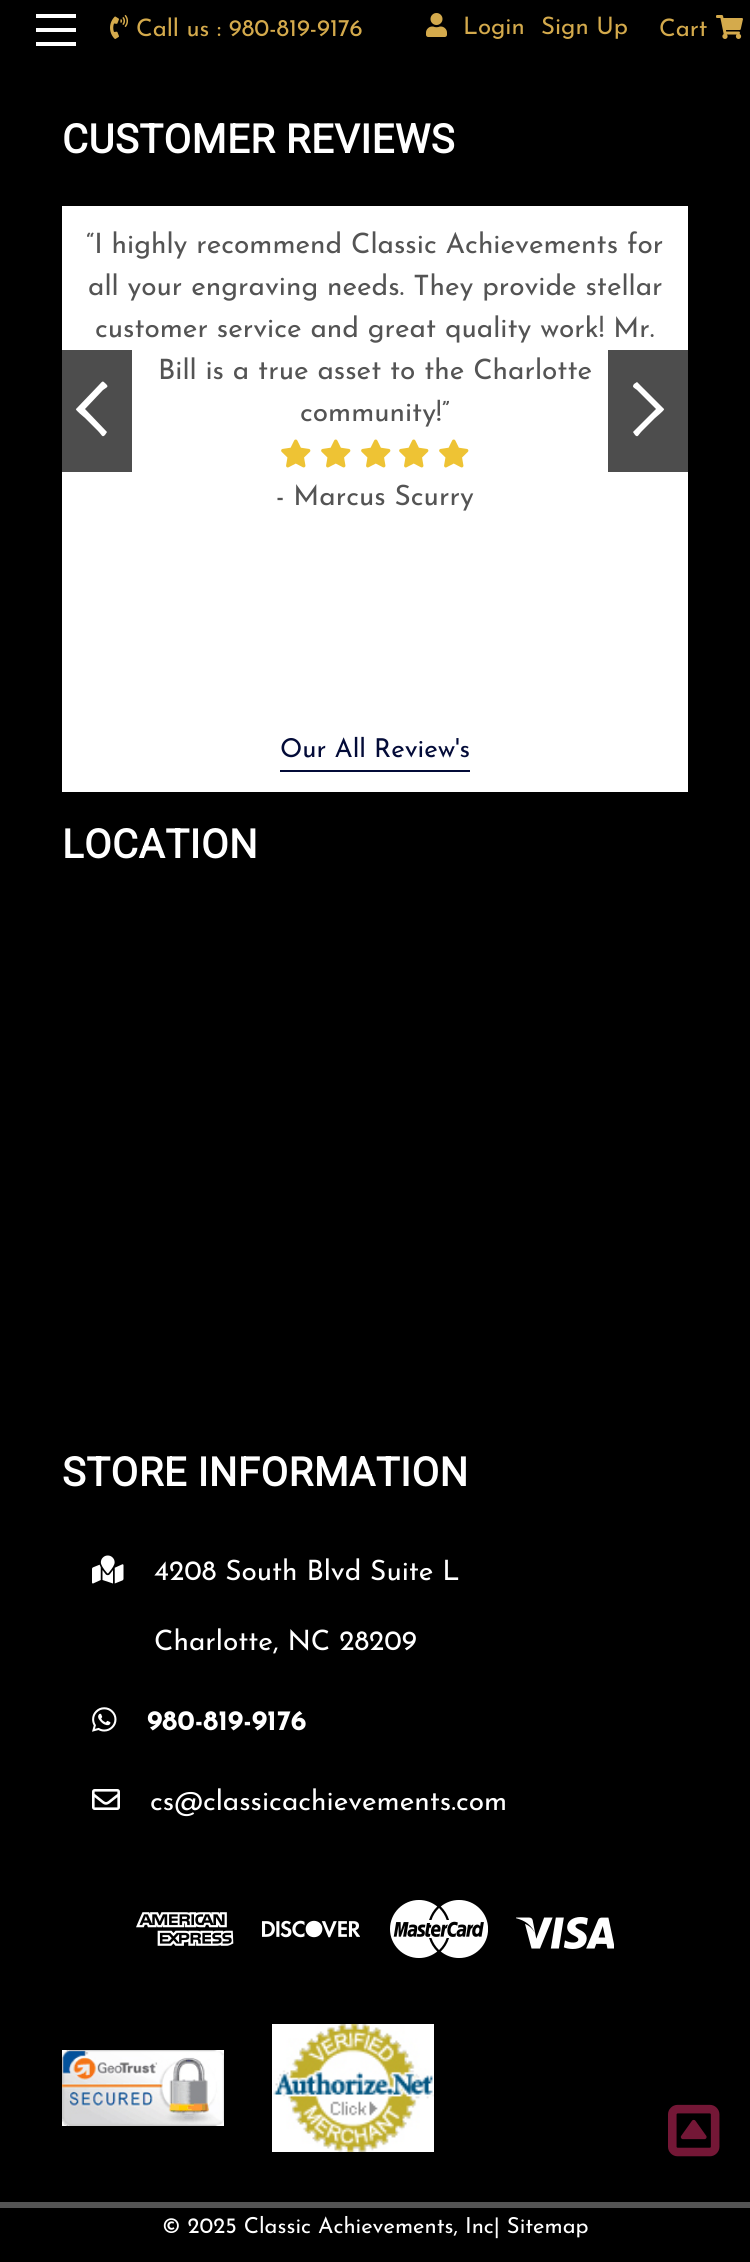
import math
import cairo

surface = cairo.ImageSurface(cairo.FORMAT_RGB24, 750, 2262)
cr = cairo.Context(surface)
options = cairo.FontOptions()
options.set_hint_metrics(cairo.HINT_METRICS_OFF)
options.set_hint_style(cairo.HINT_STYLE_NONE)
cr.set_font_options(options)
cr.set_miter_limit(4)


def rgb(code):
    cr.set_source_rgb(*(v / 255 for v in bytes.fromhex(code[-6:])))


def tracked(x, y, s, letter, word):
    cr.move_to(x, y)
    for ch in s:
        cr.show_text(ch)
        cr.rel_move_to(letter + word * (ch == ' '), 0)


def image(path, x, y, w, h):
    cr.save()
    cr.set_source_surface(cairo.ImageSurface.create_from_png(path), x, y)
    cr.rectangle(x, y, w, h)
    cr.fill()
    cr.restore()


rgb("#000000")
cr.paint()
for x, y, w, h, color in [
    (36, 28, 40, 4, "#ffffff"),
    (36, 14, 40, 4, "#ffffff"),
    (36, 42, 40, 4, "#ffffff"),
]:
    rgb(color)
    cr.rectangle(x, y, w, h)
    cr.fill()
image("img/1.png", 110, 15, 18, 24)
image("img/2.png", 426, 13, 21, 24)
image("img/3.png", 716, 15, 27, 24)
cr.rectangle(62, 206, 626, 586)
cr.fill()
rgb("#4d4d4d")
cr.rectangle(62, 350, 70, 122)
cr.fill()
image("img/4.png", 281, 439, 30, 29)
image("img/4.png", 321, 439, 30, 29)
image("img/4.png", 361, 439, 30, 29)
image("img/4.png", 399, 439, 30, 29)
image("img/4.png", 439, 439, 30, 29)
rgb("#ffffff")
cr.new_path()
cr.move_to(76, 409)
cr.curve_to(75, 410, 84, 417, 85, 418)
cr.line_to(98, 431)
cr.curve_to(102, 435, 102, 438, 105, 435)
cr.line_to(107, 432)
cr.line_to(85, 409)
cr.line_to(103, 390)
cr.curve_to(107, 387, 109, 387, 106, 384)
cr.curve_to(102, 380, 103, 381, 98, 386)
cr.close_path()
cr.fill()
rgb("#4d4d4d")
cr.rectangle(608, 350, 80, 122)
cr.fill()
rgb("#ffffff")
cr.new_path()
cr.move_to(664, 409)
cr.curve_to(665, 410, 656, 417, 655, 418)
cr.line_to(642, 431)
cr.curve_to(638, 435, 638, 438, 635, 435)
cr.line_to(633, 432)
cr.line_to(656, 409)
cr.line_to(637, 390)
cr.curve_to(633, 387, 632, 387, 634, 384)
cr.line_to(637, 382)
cr.close_path()
cr.fill()
rgb("#030b38")
cr.rectangle(280, 770, 190, 2)
cr.fill()
image("img/5.png", 92, 1555, 32, 29)
image("img/6.png", 92, 1707, 25, 25)
image("img/7.png", 92, 1789, 28, 21)
image("img/8.png", 136, 1912, 98, 34)
image("img/9.png", 262, 1920, 98, 18)
image("img/10.png", 390, 1900, 98, 58)
image("img/11.png", 516, 1917, 98, 32)
image("img/12.png", 62, 2050, 162, 76)
image("img/13.png", 272, 2024, 162, 128)
image("img/14.png", 668, 2104, 52, 53)
rgb("#545454")
cr.rectangle(0, 2202, 750, 6)
cr.fill()
cr.select_font_face("Josefin Sans")
cr.set_font_size(24)
rgb("#d4aa4c")
for x, y, s in [
    (136, 36, "Call us : 980-819-9176"),
    (463, 34, "Login"),
    (541, 34, "Sign Up"),
    (659, 36, "Cart"),
]:
    cr.move_to(x, y)
    cr.show_text(s)
cr.select_font_face("Roboto", cairo.FONT_SLANT_NORMAL, cairo.FONT_WEIGHT_BOLD)
cr.set_font_size(40)
rgb("#ffffff")
tracked(62, 153, "CUSTOMER REVIEWS", 0.5, 0)
cr.select_font_face("Josefin Sans")
cr.set_font_size(28)
rgb("#545454")
for x, y, s in [
    (86, 253, "“I highly recommend Classic Achievements for"),
    (88, 295, "all your engraving needs. They provide stellar"),
    (95, 337, "customer service and great quality work! Mr."),
    (158, 379, "Bill is a true asset to the Charlotte"),
    (300, 421, "community!”"),
    (276, 505, "- Marcus Scurry"),
]:
    cr.move_to(x, y)
    cr.show_text(s)
cr.set_font_size(26)
rgb("#030b38")
cr.move_to(280, 757)
cr.show_text("Our All Review's")
cr.select_font_face("Roboto", cairo.FONT_SLANT_NORMAL, cairo.FONT_WEIGHT_BOLD)
cr.set_font_size(40)
rgb("#ffffff")
tracked(62, 858, "LOCATION", 0.5, 0)
tracked(62, 1486, "STORE INFORMATION", 0.5, 0)
cr.select_font_face("Josefin Sans")
cr.set_font_size(28)
cr.move_to(154, 1580)
cr.show_text("4208 South Blvd Suite L")
cr.move_to(154, 1650)
cr.show_text("Charlotte, NC 28209")
cr.select_font_face("Josefin Sans", cairo.FONT_SLANT_NORMAL, cairo.FONT_WEIGHT_BOLD)
cr.move_to(147, 1730)
cr.show_text("980-819-9176")
cr.select_font_face("Josefin Sans")
cr.move_to(150, 1810)
cr.show_text("cs@classicachievements.com")
cr.set_font_size(22)
cr.move_to(162, 2233)
cr.show_text("© 2025 Classic Achievements, Inc| Sitemap")
surface.write_to_png("page.png")
